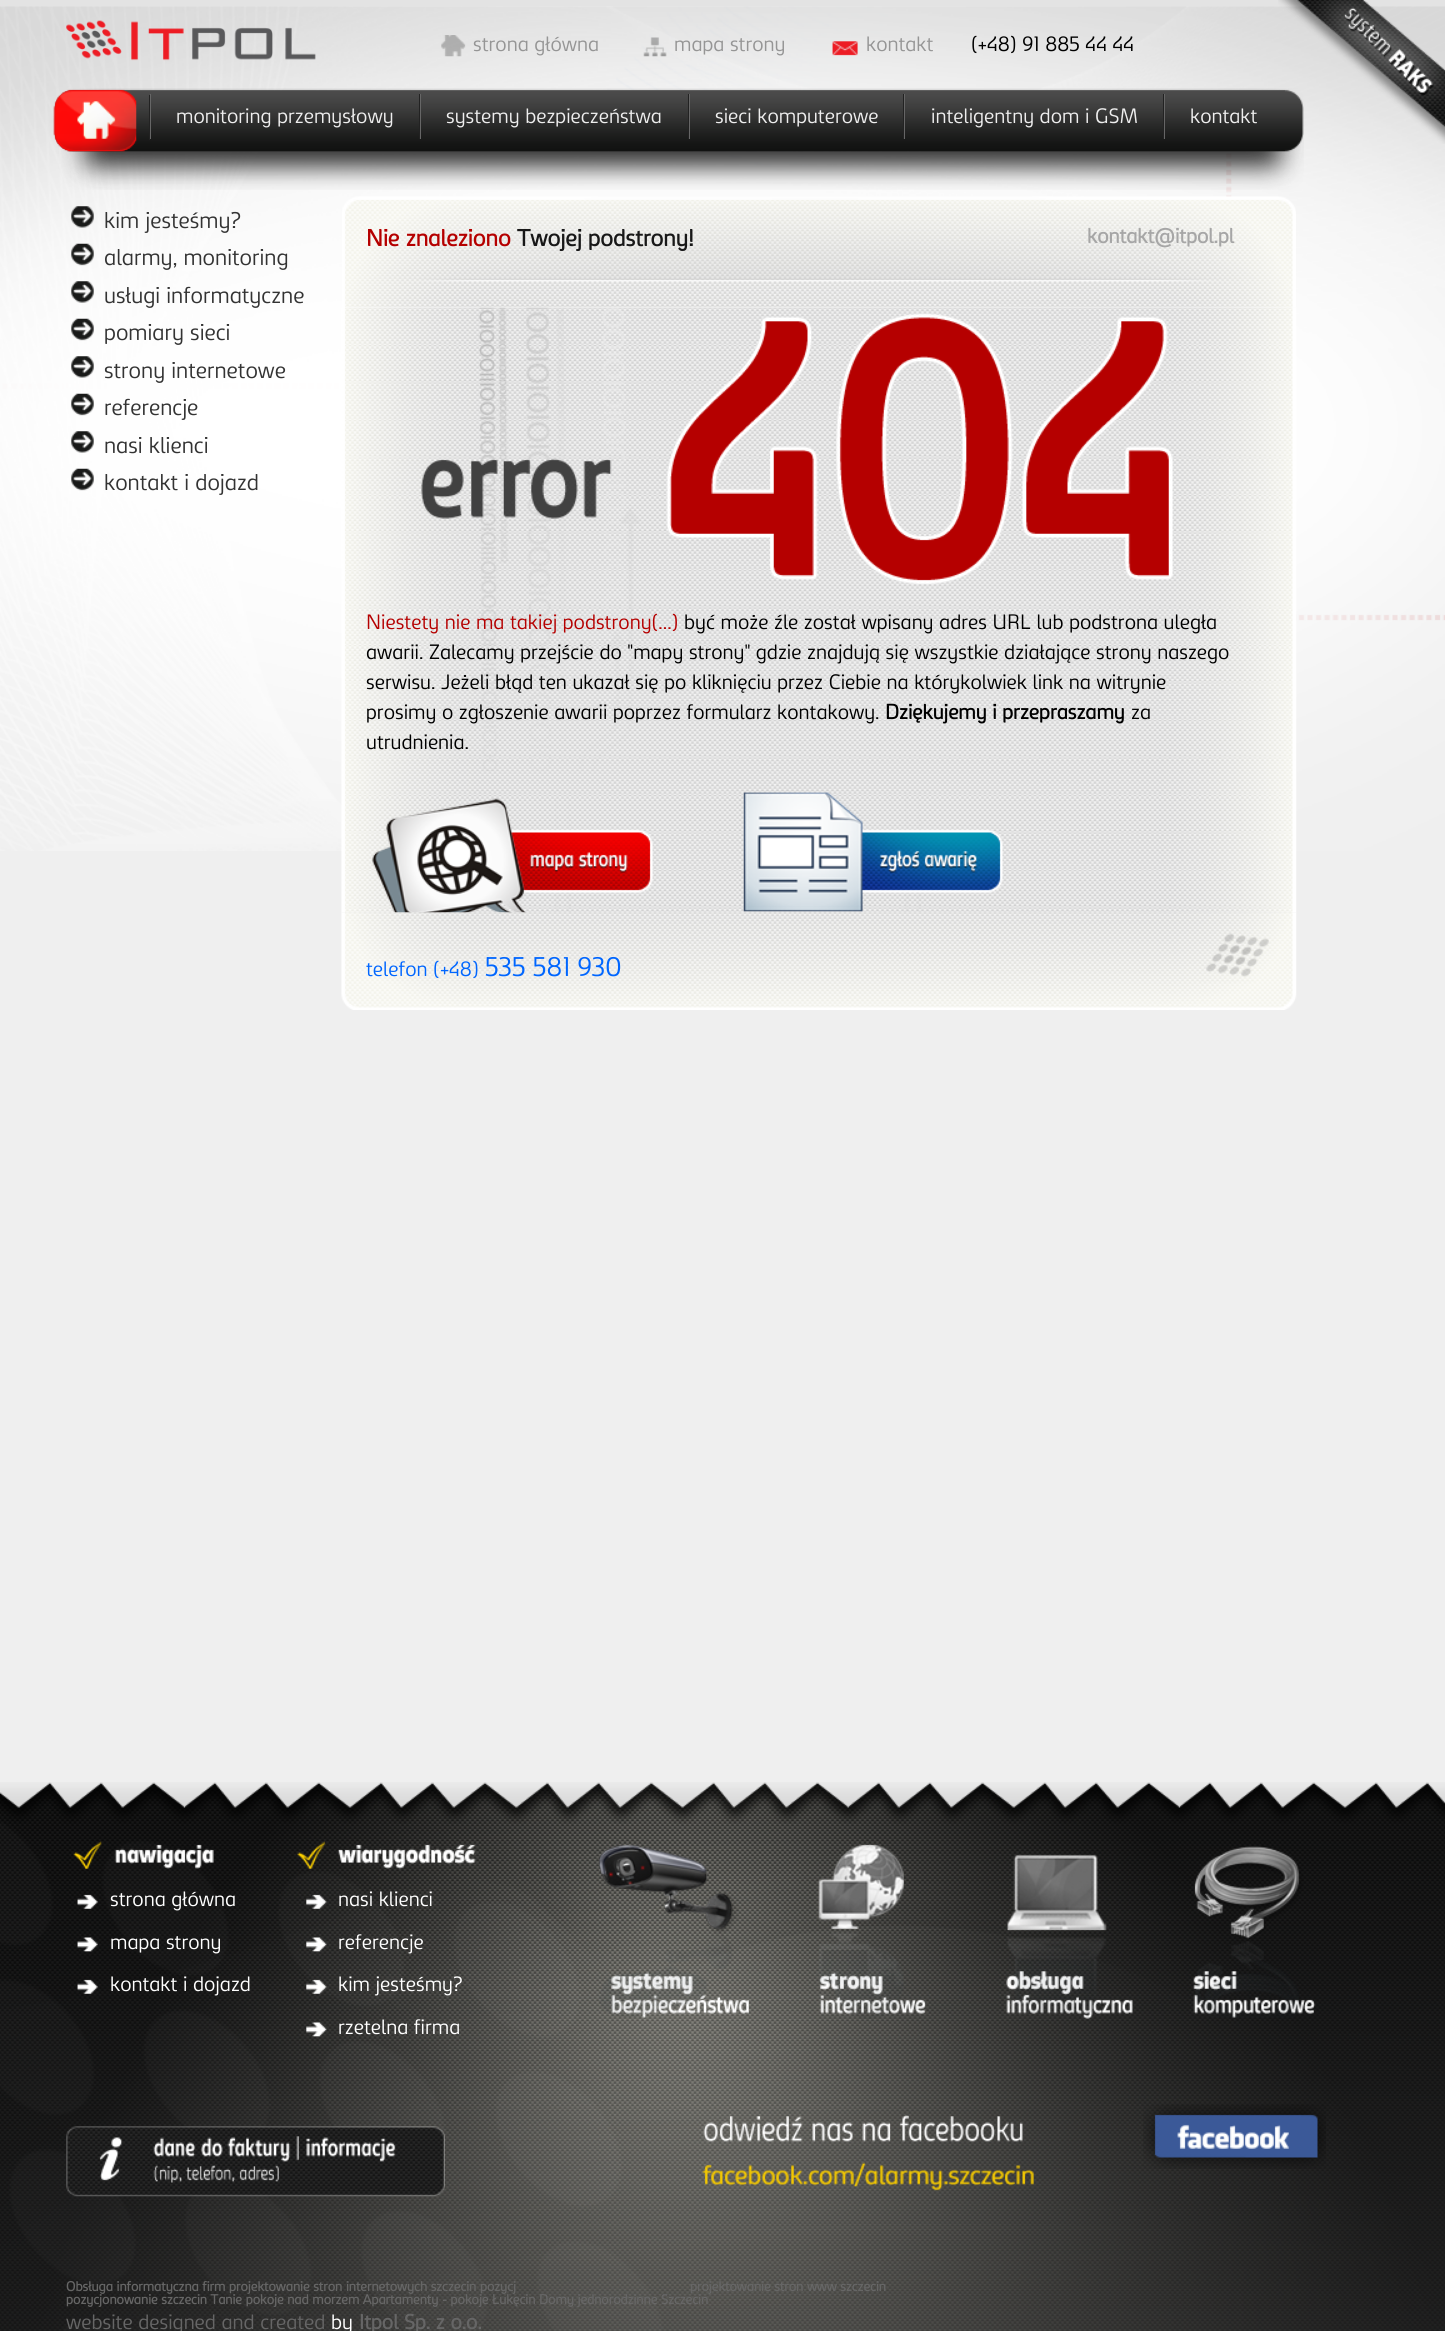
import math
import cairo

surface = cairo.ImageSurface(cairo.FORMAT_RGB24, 1445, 2331)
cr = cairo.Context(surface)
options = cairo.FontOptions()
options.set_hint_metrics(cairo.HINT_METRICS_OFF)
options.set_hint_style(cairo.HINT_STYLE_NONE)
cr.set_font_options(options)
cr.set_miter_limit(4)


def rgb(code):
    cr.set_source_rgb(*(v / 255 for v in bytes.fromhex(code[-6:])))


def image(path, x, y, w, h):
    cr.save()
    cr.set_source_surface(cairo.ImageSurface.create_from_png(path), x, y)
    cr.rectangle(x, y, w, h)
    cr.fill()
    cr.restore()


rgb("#efefef")
cr.paint()
image("img/1.png", 0, 6, 1445, 845)
rgb("#e3e3e3")
cr.rectangle(0, 0, 1445, 6)
cr.fill()
image("img/2.png", 66, 20, 250, 41)
image("img/3.png", 441, 35, 25, 22)
image("img/4.png", 643, 37, 24, 20)
image("img/5.png", 832, 41, 26, 15)
image("img/6.png", 53, 88, 1251, 102)
image("img/7.png", 53, 89, 84, 63)
for x, y, w, h, color in [
    (149, 95, 1, 45, "#222222"),
    (419, 94, 1, 45, "#222222"),
    (150, 94, 1, 45, "#666666"),
    (688, 94, 1, 45, "#222222"),
    (420, 94, 1, 45, "#666666"),
    (903, 94, 1, 45, "#222222"),
    (689, 94, 1, 45, "#666666"),
    (1163, 94, 1, 45, "#222222"),
    (904, 94, 1, 45, "#666666"),
    (1164, 94, 1, 45, "#666666"),
]:
    rgb(color)
    cr.rectangle(x, y, w, h)
    cr.fill()
image("img/8.png", 71, 206, 23, 22)
image("img/9.png", 71, 243, 23, 23)
image("img/10.png", 71, 281, 23, 22)
image("img/11.png", 71, 318, 23, 23)
image("img/12.png", 71, 356, 23, 22)
image("img/13.png", 71, 393, 23, 23)
image("img/14.png", 71, 431, 23, 22)
image("img/15.png", 71, 468, 23, 23)
image("img/16.png", 342, 196, 954, 112)
image("img/17.png", 341, 307, 956, 606)
image("img/18.png", 421, 307, 752, 464)
image("img/19.png", 372, 798, 281, 115)
image("img/20.png", 743, 792, 260, 120)
image("img/21.png", 341, 912, 956, 98)
image("img/22.png", 0, 1782, 1445, 549)
image("img/23.png", 73, 1841, 141, 28)
image("img/24.png", 77, 1894, 21, 15)
image("img/25.png", 77, 1937, 21, 15)
image("img/26.png", 77, 1979, 21, 15)
image("img/27.png", 297, 1841, 179, 28)
image("img/28.png", 306, 1894, 21, 15)
image("img/29.png", 306, 1937, 21, 15)
image("img/30.png", 306, 1979, 21, 15)
image("img/31.png", 306, 2022, 21, 15)
image("img/32.png", 66, 2126, 379, 71)
image("img/33.png", 599, 1844, 150, 174)
image("img/34.png", 818, 1844, 108, 175)
image("img/35.png", 1006, 1854, 127, 165)
image("img/36.png", 1193, 1846, 123, 172)
image("img/37.png", 702, 2115, 332, 76)
image("img/38.png", 1143, 2104, 183, 65)
image("img/39.png", 1278, 0, 167, 144)
cr.select_font_face("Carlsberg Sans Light")
cr.set_font_size(20)
rgb("#959595")
for x, y, s in [
    (473, 51, "strona główna"),
    (674, 51, "mapa strony"),
    (866, 51, "kontakt"),
]:
    cr.move_to(x, y)
    cr.show_text(s)
rgb("#000000")
cr.move_to(971, 51)
cr.show_text("(+48) 91 885 44 44")
rgb("#eeeeee")
for x, y, s in [
    (176, 123, "monitoring przemysłowy"),
    (446, 123, "systemy bezpieczeństwa"),
    (715, 123, "sieci komputerowe"),
    (931, 123, "inteligentny dom i GSM"),
    (1190, 123, "kontakt"),
]:
    cr.move_to(x, y)
    cr.show_text(s)
cr.set_font_size(22)
rgb("#333333")
for x, y, s in [
    (104, 228, "kim jesteśmy?"),
    (104, 265, "alarmy, monitoring"),
    (104, 303, "usługi informatyczne"),
    (104, 340, "pomiary sieci"),
    (104, 378, "strony internetowe"),
    (104, 415, "referencje"),
    (104, 453, "nasi klienci"),
    (104, 490, "kontakt i dojazd"),
]:
    cr.move_to(x, y)
    cr.show_text(s)
cr.select_font_face("Carlsberg Sans", cairo.FONT_SLANT_NORMAL, cairo.FONT_WEIGHT_BOLD)
cr.set_font_size(22.5)
rgb("#b50000")
cr.move_to(366, 246)
cr.show_text("Nie znaleziono")
rgb("#181818")
cr.move_to(517, 246)
cr.show_text("Twojej podstrony!")
cr.set_font_size(20)
rgb("#a6a6a6")
cr.move_to(1087, 243)
cr.show_text("kontakt@itpol.pl")
cr.select_font_face("Carlsberg Sans Light")
rgb("#b50000")
cr.move_to(366, 629)
cr.show_text("Niestety nie ma takiej podstrony(...)")
rgb("#000000")
for x, y, s in [
    (684, 629, "być może źle został wpisany adres URL lub podstrona uległa"),
    (366, 659, "awarii. Zalecamy przejście do \"mapy strony\" gdzie znajdują się wszystkie działające strony naszego"),
    (366, 689, "serwisu. Jeżeli błąd ten ukazał się po kliknięciu przez Ciebie na którykolwiek link na witrynie"),
    (366, 719, "prosimy o zgłoszenie awarii poprzez formularz kontakowy."),
]:
    cr.move_to(x, y)
    cr.show_text(s)
cr.select_font_face("Carlsberg Sans", cairo.FONT_SLANT_NORMAL, cairo.FONT_WEIGHT_BOLD)
cr.move_to(885, 719)
cr.show_text("Dziękujemy i przepraszamy")
cr.select_font_face("Carlsberg Sans Light")
cr.move_to(1131, 719)
cr.show_text("za")
cr.move_to(366, 749)
cr.show_text("utrudnienia.")
rgb("#0066ff")
cr.move_to(366, 976)
cr.show_text("telefon (+48)")
cr.set_font_size(26)
cr.move_to(485, 976)
cr.show_text("535 581 930")
cr.set_font_size(20)
rgb("#ffffff")
for x, y, s in [
    (110, 1906, "strona główna"),
    (110, 1949, "mapa strony"),
    (110, 1991, "kontakt i dojazd"),
    (338, 1906, "nasi klienci"),
    (338, 1949, "referencje"),
    (338, 1991, "kim jesteśmy?"),
    (338, 2034, "rzetelna firma"),
]:
    cr.move_to(x, y)
    cr.show_text(s)
cr.select_font_face("Carlsberg Sans", cairo.FONT_SLANT_NORMAL, cairo.FONT_WEIGHT_BOLD)
cr.set_font_size(13)
rgb("#666666")
for x, y, s in [
    (66, 2291, "Obsługa informatyczna firm projektowanie stron internetowych szczecin pozycj"),
    (690, 2291, "projektowanie stron www szczecin"),
    (66, 2304, "pozycjonowanie szczecin Tanie pokoje nad morzem Apartamenty - pokoje Łukęcin Domy jednorodzinne Szczecin"),
]:
    cr.move_to(x, y)
    cr.show_text(s)
cr.select_font_face("Carlsberg Sans Light")
cr.set_font_size(20)
cr.move_to(66, 2329)
cr.show_text("website designed and created")
rgb("#ffffff")
cr.move_to(331, 2329)
cr.show_text("by")
cr.select_font_face("Carlsberg Sans", cairo.FONT_SLANT_NORMAL, cairo.FONT_WEIGHT_BOLD)
rgb("#666666")
cr.move_to(359, 2329)
cr.show_text("Itpol Sp. z o.o.")
surface.write_to_png("page.png")
